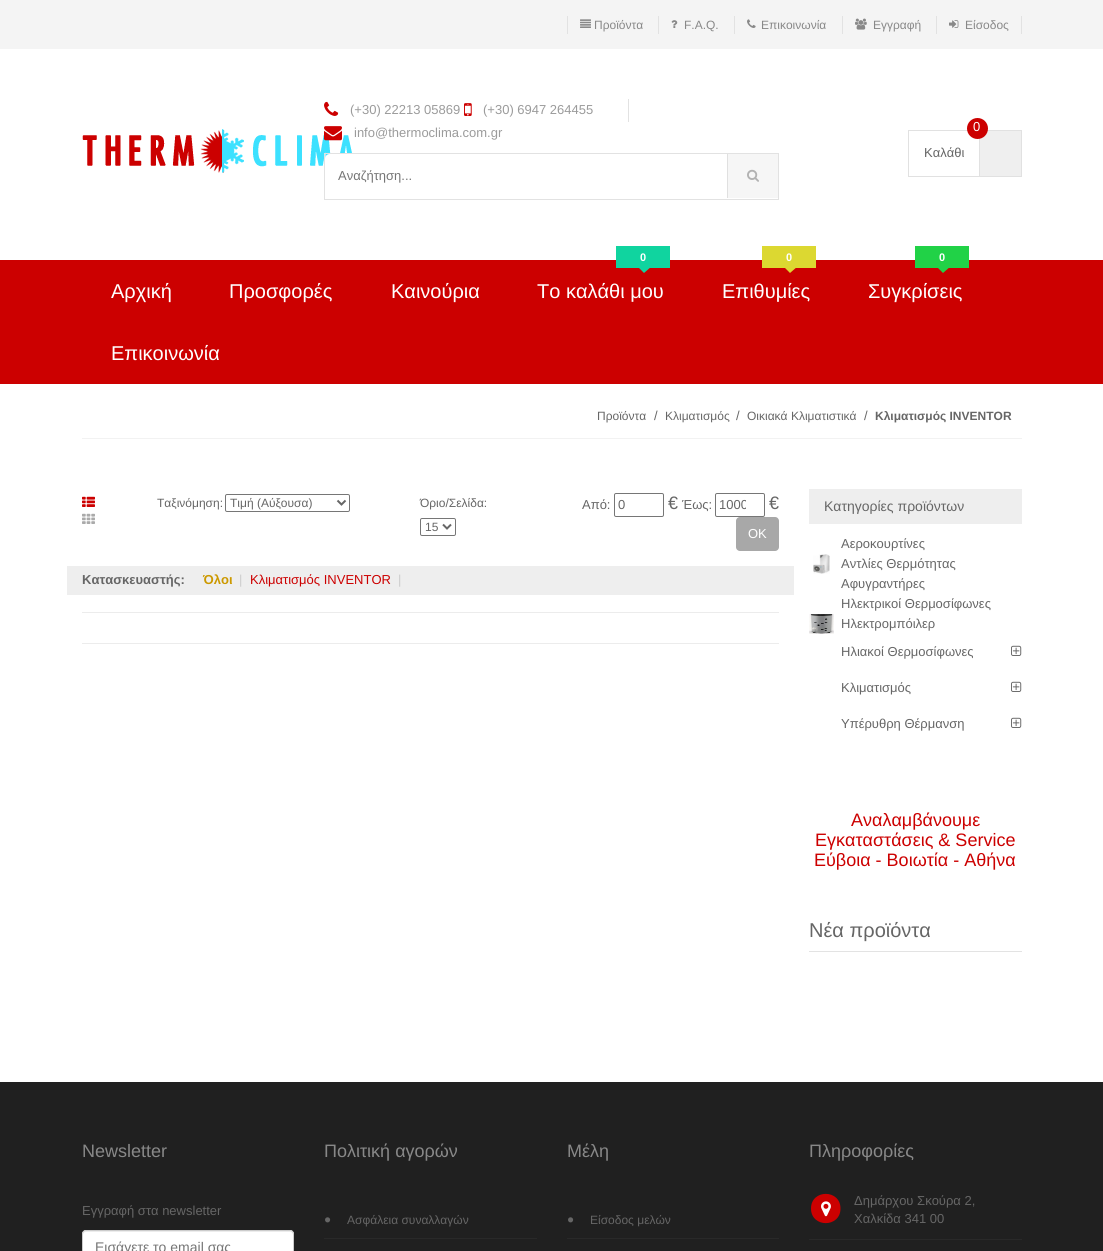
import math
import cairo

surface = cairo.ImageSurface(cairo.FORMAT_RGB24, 1103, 1251)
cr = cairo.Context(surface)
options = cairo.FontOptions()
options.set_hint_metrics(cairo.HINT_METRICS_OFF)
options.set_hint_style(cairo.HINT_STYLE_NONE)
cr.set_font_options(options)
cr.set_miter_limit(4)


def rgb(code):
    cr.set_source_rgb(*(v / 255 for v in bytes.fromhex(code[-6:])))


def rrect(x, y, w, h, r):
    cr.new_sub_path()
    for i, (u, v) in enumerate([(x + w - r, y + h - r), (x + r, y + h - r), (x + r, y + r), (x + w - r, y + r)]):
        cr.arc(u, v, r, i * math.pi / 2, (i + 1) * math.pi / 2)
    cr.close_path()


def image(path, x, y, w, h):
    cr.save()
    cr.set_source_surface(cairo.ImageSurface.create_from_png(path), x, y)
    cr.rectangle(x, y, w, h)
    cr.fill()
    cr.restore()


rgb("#ffffff")
cr.paint()
rgb("#f4f4f4")
cr.rectangle(0, 0, 1103, 49)
cr.fill()
rgb("#e2e2e2")
cr.rectangle(567, 16, 1, 18)
cr.fill()
image("img/1.png", 580, 19, 11, 9)
cr.rectangle(658, 16, 1, 18)
cr.fill()
image("img/2.png", 671, 20, 7, 8)
cr.rectangle(734, 16, 1, 18)
cr.fill()
image("img/3.png", 747, 19, 9, 9)
cr.rectangle(842, 16, 1, 18)
cr.fill()
image("img/4.png", 855, 18, 12, 12)
cr.rectangle(1021, 16, 1, 18)
cr.fill()
cr.rectangle(936, 16, 1, 18)
cr.fill()
image("img/5.png", 949, 20, 10, 8)
image("img/6.png", 82, 129, 270, 44)
cr.rectangle(628, 99, 1, 23)
cr.fill()
image("img/7.png", 324, 101, 15, 15)
image("img/8.png", 464, 103, 8, 13)
image("img/9.png", 324, 126, 18, 15)
cr.rectangle(324.5, 153.5, 454, 46)
cr.set_line_width(1)
cr.stroke()
rgb("#ffffff")
cr.new_path()
cr.move_to(330, 154)
cr.line_to(629, 154)
cr.line_to(629, 199)
cr.line_to(330, 199)
cr.curve_to(327, 199, 325, 197, 325, 194)
cr.line_to(325, 159)
cr.curve_to(325, 156, 327, 154, 330, 154)
cr.close_path()
cr.fill()
rgb("#f6f6f6")
cr.rectangle(728, 154, 50, 44)
cr.fill()
rgb("#e0e0e0")
cr.rectangle(727, 154, 1, 44)
cr.fill()
image("img/10.png", 747, 169, 12, 13)
cr.rectangle(908.5, 130.5, 113, 46)
rgb("#e1e1e1")
cr.stroke()
rgb("#efefef")
cr.rectangle(980, 131, 41, 45)
cr.fill()
rgb("#e1e1e1")
cr.rectangle(979, 131, 1, 45)
cr.fill()
rgb("#cc0000")
cr.arc(977.5, 128.5, 10.5, 0, 2 * math.pi)
cr.fill()
cr.rectangle(0, 260, 1103, 124)
cr.fill()
rgb("#10d49f")
cr.rectangle(616, 246, 54, 22)
cr.fill()
cr.new_path()
cr.move_to(637, 266)
cr.line_to(652, 266)
cr.line_to(644, 273)
cr.close_path()
cr.fill()
rgb("#dcd831")
cr.rectangle(762, 246, 54, 22)
cr.fill()
cr.new_path()
cr.move_to(783, 266)
cr.line_to(798, 266)
cr.line_to(790, 273)
cr.close_path()
cr.fill()
rgb("#21d247")
cr.rectangle(915, 246, 54, 22)
cr.fill()
cr.new_path()
cr.move_to(936, 266)
cr.line_to(951, 266)
cr.line_to(943, 273)
cr.close_path()
cr.fill()
rgb("#f2f2f2")
cr.rectangle(82, 438, 940, 1)
cr.fill()
image("img/11.png", 82, 496, 13, 11)
image("img/12.png", 82, 513, 13, 11)
rrect(225.5, 494.5, 124, 17, 1.5)
rgb("#767676")
cr.stroke()
cr.new_path()
cr.move_to(337.5, 500.5)
cr.line_to(341.5, 504.5)
cr.line_to(345.5, 500.5)
rgb("#666666")
cr.set_line_width(2)
cr.stroke()
rrect(420.5, 518.5, 35, 17, 1.5)
rgb("#767676")
cr.set_line_width(1)
cr.stroke()
cr.new_path()
cr.move_to(443, 524.5)
cr.line_to(447, 528.5)
cr.line_to(451, 524.5)
rgb("#666666")
cr.set_line_width(2)
cr.stroke()
rrect(614.5, 493.5, 49, 23, 1.5)
rgb("#767676")
cr.set_line_width(1)
cr.stroke()
rrect(715.5, 493.5, 49, 23, 1.5)
cr.stroke()
rgb("#a8a8a8")
rrect(736, 517, 43, 34, 4)
cr.fill()
for x, y, w, h, color in [
    (67, 566, 727, 29, "#eeeeee"),
    (82, 612, 697, 1, "#ececec"),
    (82, 643, 697, 1, "#ececec"),
    (809, 489, 213, 35, "#eeeeee"),
]:
    rgb(color)
    cr.rectangle(x, y, w, h)
    cr.fill()
image("img/13.png", 813, 554, 17, 20)
image("img/14.png", 809, 614, 25, 20)
image("img/15.png", 1011, 645, 11, 11)
image("img/15.png", 1011, 681, 11, 11)
image("img/15.png", 1011, 717, 11, 11)
rgb("#e3e3e3")
cr.rectangle(809, 951, 213, 1)
cr.fill()
rgb("#202020")
cr.rectangle(0, 1082, 1103, 169)
cr.fill()
rgb("#ffffff")
rrect(82, 1230, 212, 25, 4)
cr.fill()
rgb("#ececec")
cr.new_path()
cr.move_to(86, 1232)
cr.line_to(290, 1232)
cr.curve_to(292, 1232, 293, 1233, 293, 1235)
cr.line_to(293, 1234)
cr.curve_to(293, 1232, 292, 1231, 290, 1231)
cr.line_to(86, 1231)
cr.curve_to(84, 1231, 83, 1232, 83, 1234)
cr.line_to(83, 1235)
cr.curve_to(83, 1233, 84, 1232, 86, 1232)
cr.close_path()
cr.fill()
rrect(82.5, 1230.5, 211, 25, 3.5)
rgb("#cccccc")
cr.stroke()
rgb("#292929")
cr.rectangle(324, 1238, 213, 1)
cr.fill()
image("img/16.png", 325, 1217, 6, 6)
cr.rectangle(567, 1238, 212, 1)
cr.fill()
image("img/16.png", 568, 1217, 6, 6)
cr.rectangle(809, 1239, 213, 1)
cr.fill()
rgb("#cc0000")
cr.new_path()
cr.move_to(840.5, 1208.5)
cr.curve_to(840.5, 1189, 811, 1189, 811, 1208.5)
cr.curve_to(811, 1228, 840.5, 1228, 840.5, 1208.5)
cr.close_path()
cr.fill()
image("img/17.png", 821, 1201, 10, 16)
cr.select_font_face("Liberation Sans")
cr.set_font_size(12)
rgb("#888888")
for x, y, s in [
    (594, 29, "Προϊόντα"),
    (684, 29, "F.A.Q."),
    (761, 29, "Επικοινωνία"),
    (873, 29, "Εγγραφή"),
    (965, 29, "Είσοδος"),
]:
    cr.move_to(x, y)
    cr.show_text(s)
cr.set_font_size(13)
rgb("#9b9b9b")
for x, y, s in [
    (350, 114, "(+30) 22213 05869"),
    (483, 114, "(+30) 6947 264455"),
    (354, 137, "info@thermoclima.com.gr"),
]:
    cr.move_to(x, y)
    cr.show_text(s)
rgb("#757575")
cr.move_to(338, 180)
cr.show_text("Αναζήτηση...")
rgb("#ffffff")
cr.move_to(973, 131)
cr.show_text("0")
rgb("#666666")
cr.move_to(924, 157)
cr.show_text("Καλάθι")
cr.set_font_size(20)
rgb("#ffffff")
for x, y, s in [
    (111, 298, "Αρχική"),
    (229, 298, "Προσφορές"),
    (391, 298, "Καινούρια"),
]:
    cr.move_to(x, y)
    cr.show_text(s)
cr.select_font_face("Liberation Sans", cairo.FONT_SLANT_NORMAL, cairo.FONT_WEIGHT_BOLD)
cr.set_font_size(11)
cr.move_to(640, 261)
cr.show_text("0")
cr.select_font_face("Liberation Sans")
cr.set_font_size(20)
cr.move_to(537, 298)
cr.show_text("Το καλάθι μου")
cr.select_font_face("Liberation Sans", cairo.FONT_SLANT_NORMAL, cairo.FONT_WEIGHT_BOLD)
cr.set_font_size(11)
cr.move_to(786, 261)
cr.show_text("0")
cr.select_font_face("Liberation Sans")
cr.set_font_size(20)
cr.move_to(722, 298)
cr.show_text("Επιθυμίες")
cr.select_font_face("Liberation Sans", cairo.FONT_SLANT_NORMAL, cairo.FONT_WEIGHT_BOLD)
cr.set_font_size(11)
cr.move_to(939, 261)
cr.show_text("0")
cr.select_font_face("Liberation Sans")
cr.set_font_size(20)
cr.move_to(868, 298)
cr.show_text("Συγκρίσεις")
cr.move_to(111, 360)
cr.show_text("Επικοινωνία")
cr.set_font_size(12)
rgb("#666666")
cr.move_to(597, 420)
cr.show_text("Προϊόντα")
cr.set_font_size(13)
cr.move_to(654, 420)
cr.show_text("/")
cr.set_font_size(12)
cr.move_to(665, 420)
cr.show_text("Κλιματισμός")
cr.set_font_size(13)
cr.move_to(736, 420)
cr.show_text("/")
cr.set_font_size(12)
cr.move_to(747, 420)
cr.show_text("Οικιακά Κλιματιστικά")
cr.set_font_size(13)
cr.move_to(864, 420)
cr.show_text("/")
cr.select_font_face("Liberation Sans", cairo.FONT_SLANT_NORMAL, cairo.FONT_WEIGHT_BOLD)
cr.set_font_size(12)
cr.move_to(875, 420)
cr.show_text("Κλιματισμός INVENTOR")
cr.select_font_face("Liberation Sans")
for x, y, s in [
    (157, 507, "Ταξινόμηση:"),
    (230, 507, "Τιμή (Αύξουσα)"),
    (420, 507, "Όριο/Σελίδα:"),
    (425, 531, "15"),
]:
    cr.move_to(x, y)
    cr.show_text(s)
cr.set_font_size(13)
cr.move_to(582, 509)
cr.show_text("Από:")
cr.move_to(618, 509)
cr.show_text("0")
cr.set_font_size(18)
cr.move_to(668, 509)
cr.show_text("€")
cr.set_font_size(13)
cr.move_to(682, 509)
cr.show_text("Έως:")
cr.save()
cr.rectangle(719, 496, 27, 18)
cr.clip()
cr.move_to(719, 509)
cr.show_text("1000")
cr.restore()
cr.set_font_size(18)
cr.move_to(769, 509)
cr.show_text("€")
cr.set_font_size(13)
rgb("#ffffff")
cr.move_to(748, 538)
cr.show_text("OK")
cr.select_font_face("Liberation Sans", cairo.FONT_SLANT_NORMAL, cairo.FONT_WEIGHT_BOLD)
rgb("#666666")
cr.move_to(82, 584)
cr.show_text("Κατασκευαστής:")
rgb("#cc9900")
cr.move_to(203, 584)
cr.show_text("Όλοι")
cr.select_font_face("Liberation Sans")
rgb("#cccccc")
cr.move_to(239, 584)
cr.show_text("|")
rgb("#cc0000")
cr.move_to(250, 584)
cr.show_text("Κλιματισμός INVENTOR")
rgb("#cccccc")
cr.move_to(398, 584)
cr.show_text("|")
cr.set_font_size(14)
rgb("#666666")
cr.move_to(824, 511)
cr.show_text("Κατηγορίες προϊόντων")
cr.set_font_size(13)
for x, y, s in [
    (841, 548, "Αεροκουρτίνες"),
    (841, 568, "Αντλίες Θερμότητας"),
    (841, 588, "Αφυγραντήρες"),
    (841, 608, "Ηλεκτρικοί Θερμοσίφωνες"),
    (841, 628, "Ηλεκτρομπόιλερ"),
    (841, 656, "Ηλιακοί Θερμοσίφωνες"),
    (841, 692, "Κλιματισμός"),
    (841, 728, "Υπέρυθρη Θέρμανση"),
]:
    cr.move_to(x, y)
    cr.show_text(s)
cr.set_font_size(18)
rgb("#cc0000")
for x, y, s in [
    (851, 826, "Αναλαμβάνουμε"),
    (815, 846, "Εγκαταστάσεις & Service"),
    (814, 866, "Εύβοια - Βοιωτία - Αθήνα"),
]:
    cr.move_to(x, y)
    cr.show_text(s)
cr.set_font_size(20)
rgb("#666666")
cr.move_to(809, 937)
cr.show_text("Νέα προϊόντα")
cr.set_font_size(18)
rgb("#888888")
cr.move_to(82, 1157)
cr.show_text("Newsletter")
cr.set_font_size(13)
rgb("#666666")
cr.move_to(82, 1215)
cr.show_text("Εγγραφή στα newsletter")
cr.set_font_size(14)
rgb("#757575")
cr.move_to(95, 1252)
cr.show_text("Εισάγετε το email σας")
cr.set_font_size(18)
rgb("#888888")
cr.move_to(324, 1157)
cr.show_text("Πολιτική αγορών")
cr.set_font_size(12)
rgb("#666666")
cr.move_to(347, 1224)
cr.show_text("Ασφάλεια συναλλαγών")
cr.set_font_size(18)
rgb("#888888")
cr.move_to(567, 1157)
cr.show_text("Μέλη")
cr.set_font_size(12)
rgb("#666666")
cr.move_to(590, 1224)
cr.show_text("Είσοδος μελών")
cr.set_font_size(18)
rgb("#888888")
cr.move_to(809, 1157)
cr.show_text("Πληροφορίες")
cr.set_font_size(13)
rgb("#666666")
cr.move_to(854, 1205)
cr.show_text("Δημάρχου Σκούρα 2,")
cr.move_to(854, 1223)
cr.show_text("Χαλκίδα 341 00")
surface.write_to_png("page.png")
